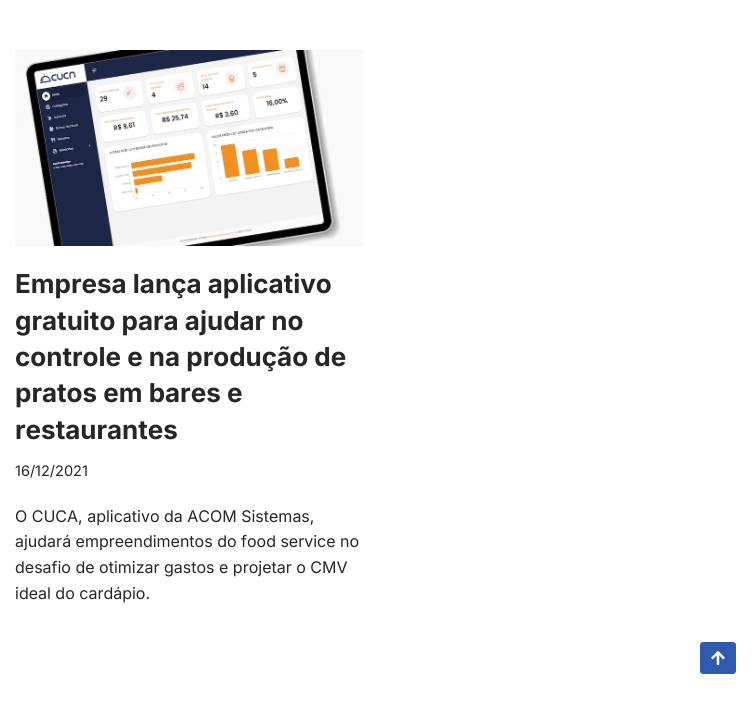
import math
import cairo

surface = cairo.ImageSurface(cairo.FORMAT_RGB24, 756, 704)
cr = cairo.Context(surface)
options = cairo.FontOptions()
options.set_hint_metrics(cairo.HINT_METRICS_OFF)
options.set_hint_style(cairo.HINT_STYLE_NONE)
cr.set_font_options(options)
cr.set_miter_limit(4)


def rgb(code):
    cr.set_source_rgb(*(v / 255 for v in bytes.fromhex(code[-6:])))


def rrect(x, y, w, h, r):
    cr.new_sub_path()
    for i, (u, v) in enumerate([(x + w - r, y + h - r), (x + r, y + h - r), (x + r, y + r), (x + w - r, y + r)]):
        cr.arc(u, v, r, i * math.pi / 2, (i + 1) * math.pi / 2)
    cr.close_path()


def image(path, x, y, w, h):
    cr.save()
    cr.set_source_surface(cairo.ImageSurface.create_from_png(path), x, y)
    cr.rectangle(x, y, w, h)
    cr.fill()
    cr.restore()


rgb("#ffffff")
cr.paint()
image("img/1.png", 15, 50, 348, 196)
rgb("#2f5aae")
rrect(700, 642, 36, 32, 3)
cr.fill()
image("img/2.png", 711, 651, 14, 14)
cr.select_font_face("Inter", cairo.FONT_SLANT_NORMAL, cairo.FONT_WEIGHT_BOLD)
cr.set_font_size(26)
rgb("#272626")
for x, y, s in [
    (15, 293, "Empresa lança aplicativo"),
    (15, 330, "gratuito para ajudar no"),
    (15, 366, "controle e na produção de"),
    (15, 402, "pratos em bares e"),
    (15, 439, "restaurantes"),
]:
    cr.move_to(x, y)
    cr.show_text(s)
cr.select_font_face("Inter")
cr.set_font_size(14.5)
cr.move_to(15, 476)
cr.show_text("16/12/2021")
cr.set_font_size(16)
for x, y, s in [
    (15, 522, "O CUCA, aplicativo da ACOM Sistemas,"),
    (15, 547, "ajudará empreendimentos do food service no"),
    (15, 573, "desafio de otimizar gastos e projetar o CMV"),
    (15, 599, "ideal do cardápio."),
]:
    cr.move_to(x, y)
    cr.show_text(s)
surface.write_to_png("page.png")
